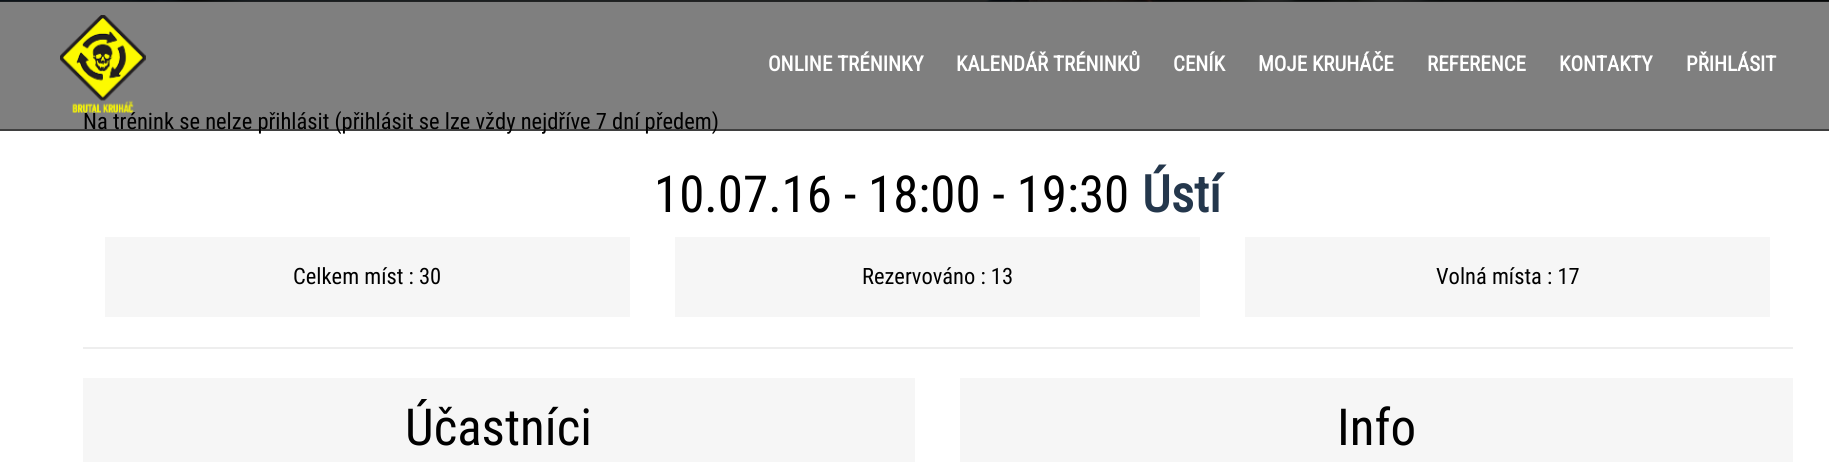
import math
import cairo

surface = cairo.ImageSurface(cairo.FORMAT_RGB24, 1829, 462)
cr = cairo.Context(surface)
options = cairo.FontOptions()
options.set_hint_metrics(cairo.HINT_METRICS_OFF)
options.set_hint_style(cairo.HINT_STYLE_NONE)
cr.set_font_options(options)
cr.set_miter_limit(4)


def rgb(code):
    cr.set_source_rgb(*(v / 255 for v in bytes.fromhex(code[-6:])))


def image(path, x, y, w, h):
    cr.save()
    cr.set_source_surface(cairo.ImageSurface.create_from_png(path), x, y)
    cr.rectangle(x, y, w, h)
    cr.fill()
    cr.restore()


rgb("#ffffff")
cr.paint()
rgb("#4d4d4d")
cr.rectangle(0, 1, 1829, 1)
cr.fill()
image("img/2.png", 0, 0, 1829, 2)
for x, y, w, h, color in [
    (105, 237, 525, 80, "#f6f6f6"),
    (675, 237, 525, 80, "#f6f6f6"),
    (1245, 237, 525, 80, "#f6f6f6"),
    (83, 347, 1710, 2, "#eeeeee"),
    (83, 378, 832, 84, "#f6f6f6"),
    (960, 378, 833, 84, "#f6f6f6"),
]:
    rgb(color)
    cr.rectangle(x, y, w, h)
    cr.fill()
cr.select_font_face("Roboto Condensed")
cr.set_font_size(22.5)
rgb("#000000")
cr.move_to(83, 129)
cr.show_text("Na trénink se nelze přihlásit (přihlásit se lze vždy nejdříve 7 dní předem)")
cr.set_source_rgba(0, 0, 0, 0.5)
cr.rectangle(0, 0, 1829, 131)
cr.fill()
cr.select_font_face("Roboto Condensed", cairo.FONT_SLANT_NORMAL, cairo.FONT_WEIGHT_BOLD)
cr.set_font_size(21)
rgb("#ffffff")
for x, y, s in [
    (1686, 71, "PŘIHLÁSIT"),
    (1559, 71, "KONTAKTY"),
    (1427, 71, "REFERENCE"),
    (1258, 71, "MOJE KRUHÁČE"),
    (1173, 71, "CENÍK"),
    (956, 71, "KALENDÁŘ TRÉNINKŮ"),
    (768, 71, "ONLINE TRÉNINKY"),
]:
    cr.move_to(x, y)
    cr.show_text(s)
image("img/1.png", 60, 15, 86, 98)
cr.set_source_rgba(0, 0, 0, 0.5)
cr.rectangle(0, 129, 1829, 2)
cr.fill()
cr.select_font_face("Roboto Condensed")
cr.set_font_size(51)
rgb("#000000")
cr.move_to(654, 212)
cr.show_text("10.07.16 - 18:00 - 19:30")
cr.select_font_face("Roboto Condensed", cairo.FONT_SLANT_NORMAL, cairo.FONT_WEIGHT_BOLD)
rgb("#24374c")
cr.move_to(1142, 212)
cr.show_text("Ústí")
cr.select_font_face("Roboto Condensed")
cr.set_font_size(22.5)
rgb("#000000")
for x, y, s in [
    (293, 284, "Celkem míst : 30"),
    (862, 284, "Rezervováno : 13"),
    (1436, 284, "Volná místa : 17"),
]:
    cr.move_to(x, y)
    cr.show_text(s)
cr.set_font_size(51)
cr.move_to(405, 445)
cr.show_text("Účastníci")
cr.move_to(1337, 445)
cr.show_text("Info")
surface.write_to_png("page.png")
